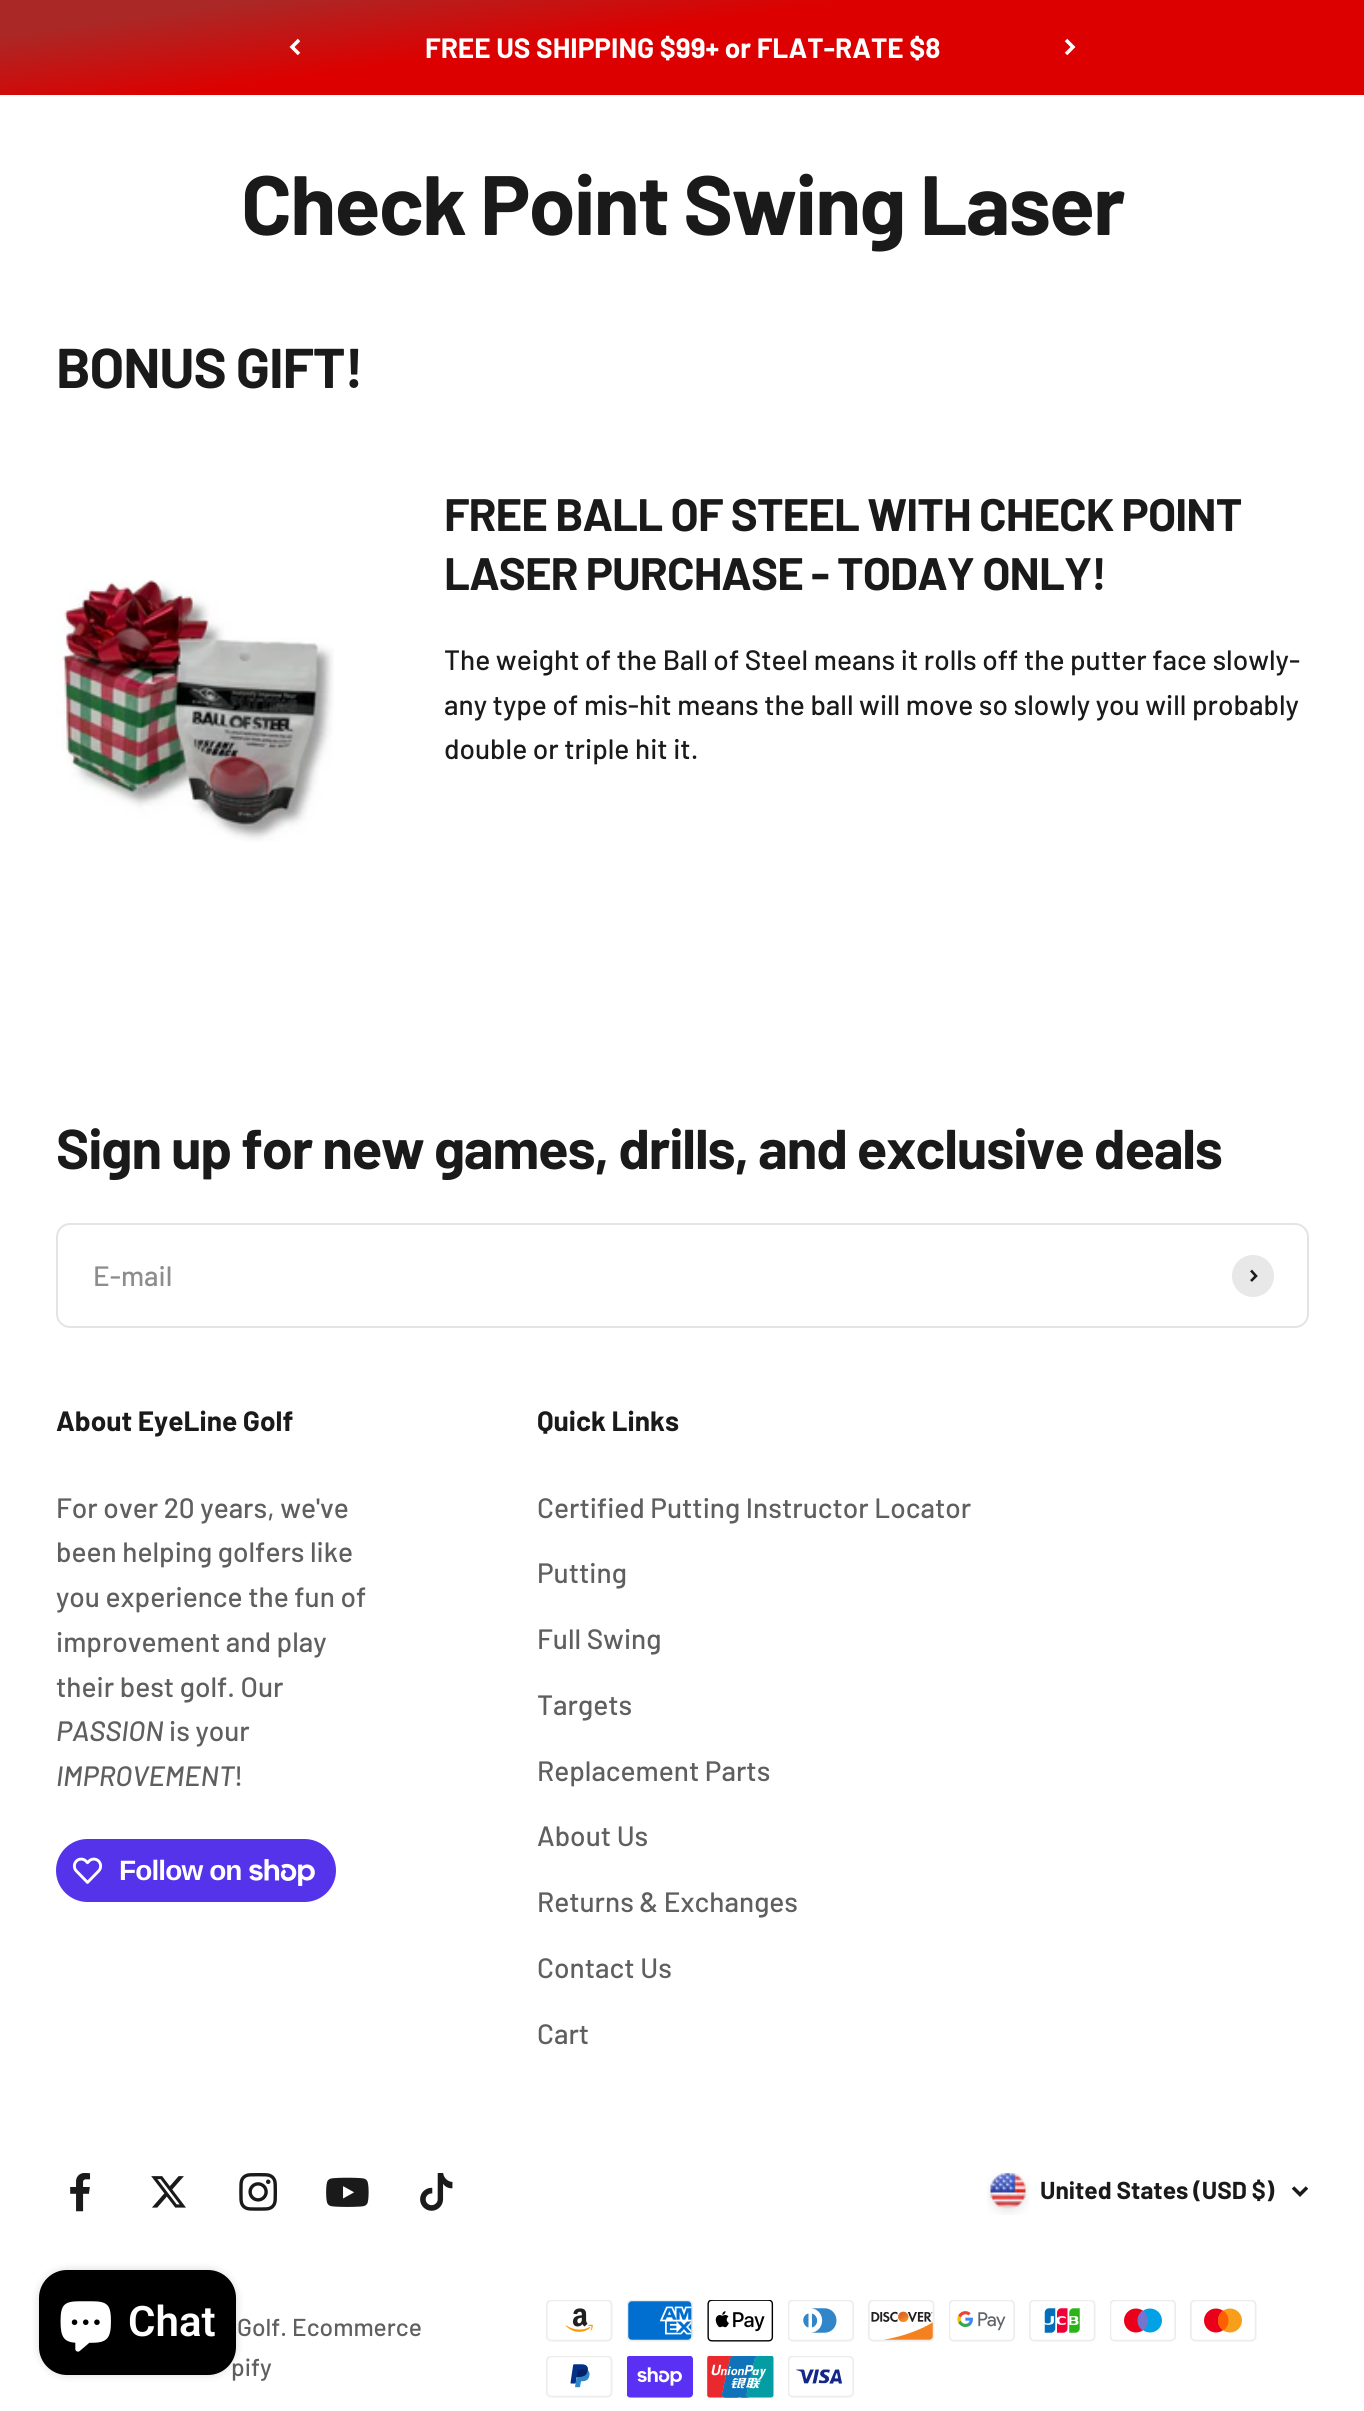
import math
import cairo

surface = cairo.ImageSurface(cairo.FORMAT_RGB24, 1364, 2411)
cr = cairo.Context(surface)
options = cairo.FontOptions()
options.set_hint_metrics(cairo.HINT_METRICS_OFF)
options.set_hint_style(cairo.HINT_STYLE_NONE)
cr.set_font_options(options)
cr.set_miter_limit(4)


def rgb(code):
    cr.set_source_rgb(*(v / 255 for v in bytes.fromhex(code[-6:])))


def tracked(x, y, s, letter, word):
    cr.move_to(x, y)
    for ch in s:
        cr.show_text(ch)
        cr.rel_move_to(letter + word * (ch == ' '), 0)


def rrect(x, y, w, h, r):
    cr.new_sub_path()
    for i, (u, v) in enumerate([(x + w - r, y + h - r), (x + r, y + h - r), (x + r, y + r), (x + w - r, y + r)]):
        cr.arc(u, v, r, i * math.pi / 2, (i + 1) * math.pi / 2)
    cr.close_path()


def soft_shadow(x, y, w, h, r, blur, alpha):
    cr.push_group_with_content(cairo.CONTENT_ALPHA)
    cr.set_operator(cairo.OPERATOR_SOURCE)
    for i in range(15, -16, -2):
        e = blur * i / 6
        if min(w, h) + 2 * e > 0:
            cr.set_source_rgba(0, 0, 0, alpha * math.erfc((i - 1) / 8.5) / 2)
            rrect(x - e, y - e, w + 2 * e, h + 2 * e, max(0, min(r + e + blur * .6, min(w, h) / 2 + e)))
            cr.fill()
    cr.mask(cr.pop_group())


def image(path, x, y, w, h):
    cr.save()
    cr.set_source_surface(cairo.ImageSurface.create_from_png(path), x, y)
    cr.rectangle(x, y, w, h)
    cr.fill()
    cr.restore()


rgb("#ffffff")
cr.paint()
gradient = cairo.LinearGradient(702, 188, 663, -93)
gradient.add_color_stop_rgba(0.58, 0.867, 0, 0, 1)
gradient.add_color_stop_rgba(0.87, 0.667, 0.157, 0.149, 1)
cr.set_source(gradient)
cr.rectangle(0, 0, 1364, 95)
cr.fill()
cr.new_path()
cr.move_to(299, 40)
cr.line_to(292, 47)
cr.line_to(299, 54)
rgb("#ffffff")
cr.set_line_width(3.5)
cr.stroke()
cr.new_path()
cr.move_to(1066, 54)
cr.line_to(1073, 47)
cr.line_to(1066, 40)
cr.stroke()
image("img/1.png", 56, 580, 278, 262)
rrect(57, 1224, 1251, 103, 13)
rgb("#e4e4e4")
cr.set_line_width(2)
cr.stroke()
rgb("#e8e8e8")
cr.arc(1253, 1276, 21, 0, 2 * math.pi)
cr.fill()
cr.new_path()
cr.move_to(1251, 1281)
cr.line_to(1256, 1276)
cr.line_to(1251, 1270.5)
rgb("#1a1a1a")
cr.set_line_width(2.6)
cr.stroke()
rgb("#5433eb")
rrect(56, 1839, 280, 63, 31.5)
cr.fill()
image("img/2.png", 72, 1857, 31, 27)
image("img/3.png", 249, 1859, 66, 27)
image("img/4.png", 70, 2173, 21, 39)
image("img/5.png", 151, 2176, 35, 32)
image("img/6.png", 239, 2173, 38, 38)
image("img/7.png", 326, 2177, 43, 30)
image("img/8.png", 420, 2173, 33, 38)
image("img/9.png", 987, 2173, 42, 42)
cr.new_path()
cr.move_to(1293, 2187.5)
cr.line_to(1300, 2194.5)
cr.line_to(1307, 2187.5)
rgb("#1a1a1a")
cr.set_line_width(3.5)
cr.stroke()
image("img/10.png", 546, 2300, 67, 42)
image("img/11.png", 627, 2300, 66, 42)
image("img/12.png", 707, 2300, 67, 42)
image("img/13.png", 788, 2300, 66, 42)
image("img/14.png", 868, 2300, 67, 42)
image("img/15.png", 949, 2300, 66, 42)
image("img/16.png", 1029, 2300, 67, 42)
image("img/17.png", 1110, 2300, 66, 42)
image("img/18.png", 1190, 2300, 67, 42)
image("img/19.png", 546, 2356, 67, 42)
image("img/20.png", 627, 2356, 66, 42)
image("img/21.png", 707, 2356, 67, 42)
image("img/22.png", 788, 2356, 66, 42)
rgb("#000000")
soft_shadow(39, 2270, 197, 105, 28, 4.5, 0.15)
cr.select_font_face("Barlow", cairo.FONT_SLANT_NORMAL, cairo.FONT_WEIGHT_BOLD)
cr.set_font_size(28)
rgb("#ffffff")
cr.move_to(425, 58)
cr.show_text("FREE US SHIPPING $99+ or FLAT-RATE $8")
cr.set_font_size(84)
rgb("#1a1a1a")
tracked(241, 235, "Check Point Swing Laser", -1.7, 0)
cr.set_font_size(56)
tracked(56, 388, "BONUS GIFT!", -1.12, 0)
cr.set_font_size(45.5)
tracked(444, 531, "FREE BALL OF STEEL WITH CHECK POINT", -0.9, 0)
tracked(444, 590, "LASER PURCHASE - TODAY ONLY!", -0.9, 0)
cr.select_font_face("Barlow Medium")
cr.set_font_size(28)
for x, y, s in [
    (444, 670, "The weight of the Ball of Steel means it rolls off the putter face slowly-"),
    (444, 715, "any type of mis-hit means the ball will move so slowly you will probably"),
    (444, 759, "double or triple hit it."),
]:
    cr.move_to(x, y)
    cr.show_text(s)
cr.select_font_face("Barlow", cairo.FONT_SLANT_NORMAL, cairo.FONT_WEIGHT_BOLD)
cr.set_font_size(56)
tracked(56, 1169, "Sign up for new games, drills, and exclusive deals", -1.12, 0)
cr.select_font_face("Barlow Medium")
cr.set_font_size(28)
rgb("#8d8d8d")
cr.move_to(93, 1286)
cr.show_text("E-mail")
cr.select_font_face("Barlow", cairo.FONT_SLANT_NORMAL, cairo.FONT_WEIGHT_BOLD)
rgb("#1a1a1a")
cr.move_to(56, 1431)
cr.show_text("About EyeLine Golf")
cr.select_font_face("Barlow Medium")
rgb("#5f5f5f")
for x, y, s in [
    (56, 1518, "For over 20 years, we've"),
    (56, 1562, "been helping golfers like"),
    (56, 1607, "you experience the fun of"),
    (56, 1652, "improvement and play"),
    (56, 1697, "their best golf. Our"),
]:
    cr.move_to(x, y)
    cr.show_text(s)
cr.select_font_face("Barlow Medium", cairo.FONT_SLANT_ITALIC)
cr.move_to(56, 1741)
cr.show_text("PASSION")
cr.select_font_face("Barlow Medium")
cr.move_to(169, 1741)
cr.show_text("is your")
cr.select_font_face("Barlow Medium", cairo.FONT_SLANT_ITALIC)
cr.move_to(56, 1786)
cr.show_text("IMPROVEMENT")
cr.select_font_face("Barlow Medium")
cr.move_to(234, 1786)
cr.show_text("!")
cr.select_font_face("Liberation Sans", cairo.FONT_SLANT_NORMAL, cairo.FONT_WEIGHT_BOLD)
rgb("#ffffff")
tracked(119, 1880, "Follow on", -0.9, 0)
cr.select_font_face("Barlow", cairo.FONT_SLANT_NORMAL, cairo.FONT_WEIGHT_BOLD)
rgb("#1a1a1a")
cr.move_to(537, 1431)
cr.show_text("Quick Links")
cr.select_font_face("Barlow Medium")
rgb("#5f5f5f")
for x, y, s in [
    (537, 1518, "Certified Putting Instructor Locator"),
    (537, 1583, "Putting"),
    (537, 1649, "Full Swing"),
    (537, 1715, "Targets"),
    (537, 1781, "Replacement Parts"),
    (537, 1846, "About Us"),
    (537, 1912, "Returns & Exchanges"),
    (537, 1978, "Contact Us"),
    (537, 2044, "Cart"),
]:
    cr.move_to(x, y)
    cr.show_text(s)
cr.select_font_face("Barlow", cairo.FONT_SLANT_NORMAL, cairo.FONT_WEIGHT_BOLD)
cr.set_font_size(24.5)
rgb("#1a1a1a")
cr.move_to(1040, 2199)
cr.show_text("United States (USD $)")
cr.select_font_face("Barlow Medium")
rgb("#5f5f5f")
cr.move_to(237, 2336)
cr.show_text("Golf. Ecommerce")
cr.move_to(231, 2376)
cr.show_text("pify")
rgb("#000000")
rrect(39, 2270, 197, 105, 28)
cr.fill()
image("img/23.png", 60, 2301, 51, 51)
cr.select_font_face("Roboto SemiBold")
cr.set_font_size(42)
rgb("#ffffff")
cr.move_to(128, 2336)
cr.show_text("Chat")
surface.write_to_png("page.png")
